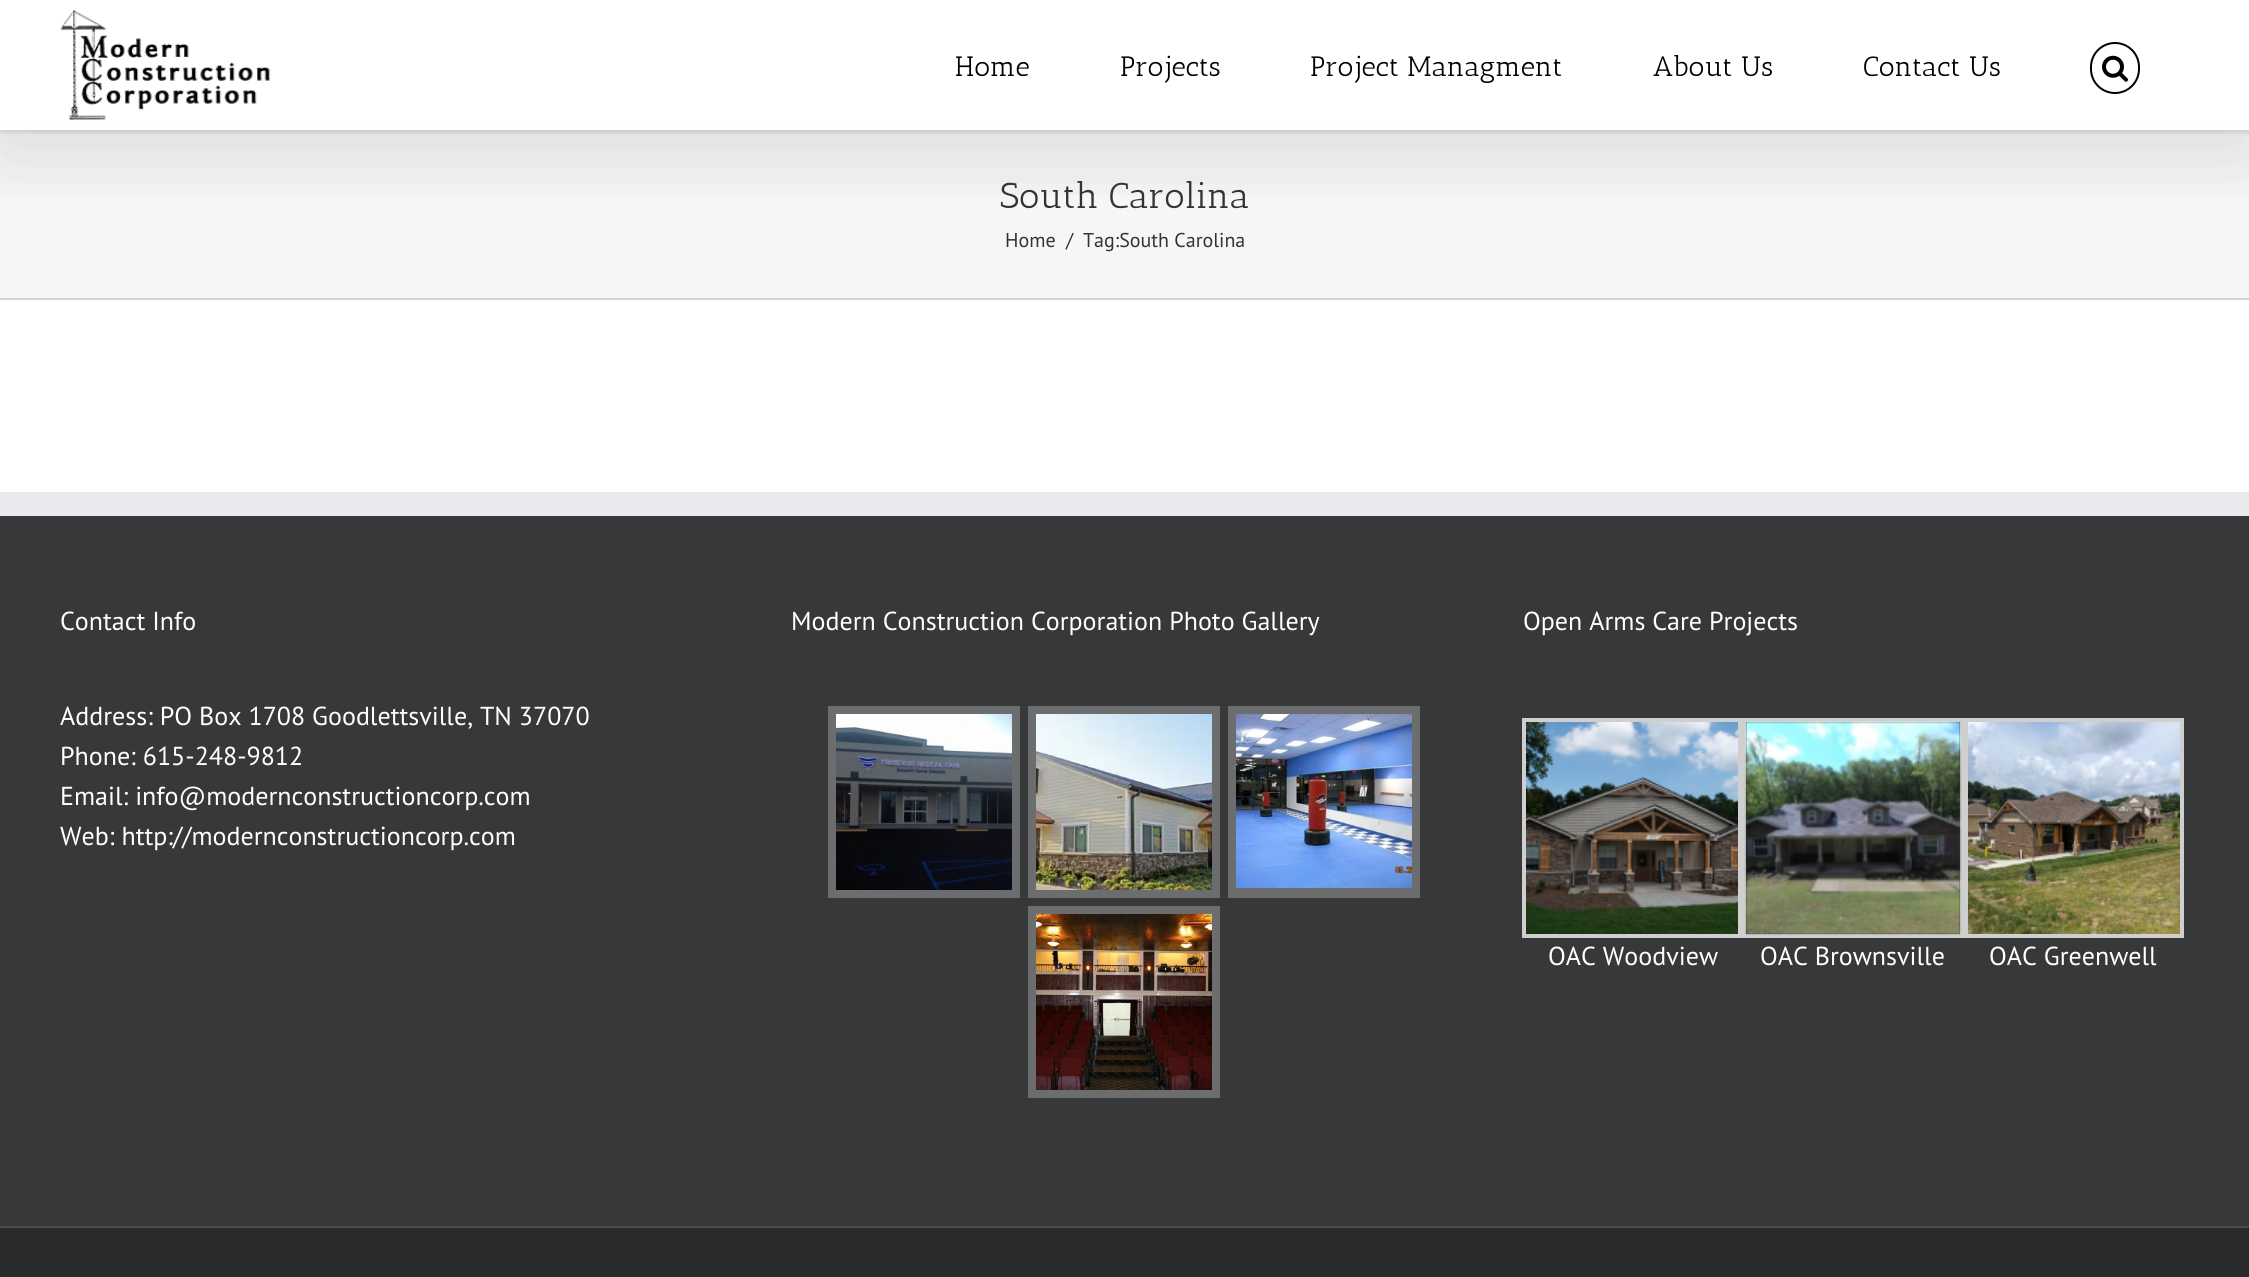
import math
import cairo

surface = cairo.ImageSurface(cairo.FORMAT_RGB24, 2249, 1277)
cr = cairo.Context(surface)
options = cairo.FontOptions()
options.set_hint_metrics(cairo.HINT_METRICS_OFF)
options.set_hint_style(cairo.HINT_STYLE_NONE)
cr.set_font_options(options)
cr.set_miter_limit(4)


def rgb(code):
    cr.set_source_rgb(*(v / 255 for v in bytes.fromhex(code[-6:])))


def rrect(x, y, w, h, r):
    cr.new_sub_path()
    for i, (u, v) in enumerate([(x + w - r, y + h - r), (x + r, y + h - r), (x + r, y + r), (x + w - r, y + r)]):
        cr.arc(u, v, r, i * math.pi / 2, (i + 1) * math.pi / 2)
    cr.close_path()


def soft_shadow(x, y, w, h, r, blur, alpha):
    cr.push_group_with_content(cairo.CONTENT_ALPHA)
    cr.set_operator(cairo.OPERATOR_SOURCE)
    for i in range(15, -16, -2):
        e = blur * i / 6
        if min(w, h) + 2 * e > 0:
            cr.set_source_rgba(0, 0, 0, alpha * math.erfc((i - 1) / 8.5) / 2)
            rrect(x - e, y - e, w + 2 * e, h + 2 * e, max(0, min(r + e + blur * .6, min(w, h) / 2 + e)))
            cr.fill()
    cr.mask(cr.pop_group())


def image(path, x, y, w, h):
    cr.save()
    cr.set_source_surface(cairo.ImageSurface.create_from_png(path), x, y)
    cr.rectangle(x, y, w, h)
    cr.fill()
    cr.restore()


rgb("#ffffff")
cr.paint()
rgb("#f6f6f6")
cr.rectangle(0, 128, 2249, 170)
cr.fill()
rgb("#d2d3d4")
cr.rectangle(0, 126, 2249, 2)
cr.fill()
cr.save()
cr.rectangle(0, 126, 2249, 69)
cr.clip()
rgb("#000000")
soft_shadow(4, -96, 2242, 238, 0, 50, 0.14)
cr.restore()
cr.save()
cr.rectangle(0, 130, 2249, 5)
cr.clip()
rgb("#000000")
soft_shadow(0, 2, 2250, 130, 0, 3, 0.12)
cr.restore()
cr.set_source_rgba(1, 1, 1, 0.97)
cr.rectangle(0, 126, 2249, 4)
cr.fill()
image("img/1.png", 60, 10, 211, 110)
rrect(2091, 43, 48, 50, 24)
rgb("#000000")
cr.stroke()
image("img/2.png", 2102, 55, 26, 27)
for x, y, w, h, color in [
    (0, 298, 2249, 2, "#d2d3d4"),
    (0, 516, 2249, 710, "#363839"),
    (0, 492, 2249, 24, "#e9eaee"),
    (828, 706, 192, 192, "#6b6d6e"),
]:
    rgb(color)
    cr.rectangle(x, y, w, h)
    cr.fill()
image("img/3.png", 836, 714, 176, 176)
cr.rectangle(1028, 706, 192, 192)
cr.fill()
image("img/4.png", 1036, 714, 176, 176)
cr.rectangle(1228, 706, 192, 192)
cr.fill()
image("img/5.png", 1236, 714, 176, 174)
cr.rectangle(1028, 906, 192, 192)
cr.fill()
image("img/6.png", 1036, 914, 176, 176)
cr.rectangle(1524, 720, 216, 216)
rgb("#cfcfcf")
cr.set_line_width(4)
cr.stroke()
image("img/7.png", 1526, 722, 212, 212)
cr.rectangle(1744, 720, 218, 216)
cr.stroke()
image("img/8.png", 1744, 721, 218, 215)
cr.rectangle(1966, 720, 216, 216)
cr.stroke()
image("img/9.png", 1968, 722, 212, 212)
rgb("#282a2b")
cr.rectangle(0, 1228, 2249, 49)
cr.fill()
rgb("#4b4c4d")
cr.rectangle(0, 1226, 2249, 2)
cr.fill()
cr.select_font_face("Antic Slab")
cr.set_font_size(28)
rgb("#000000")
for x, y, s in [
    (955, 76, "Home"),
    (1120, 76, "Projects"),
    (1310, 76, "Project Managment"),
    (1653, 76, "About Us"),
    (1863, 76, "Contact Us"),
]:
    cr.move_to(x, y)
    cr.show_text(s)
cr.set_font_size(36)
rgb("#333333")
cr.move_to(1000, 208)
cr.show_text("South Carolina")
cr.select_font_face("PT Sans")
cr.set_font_size(20)
for x, y, s in [
    (1005, 247, "Home"),
    (1066, 247, "/"),
    (1083, 247, "Tag:South Carolina"),
]:
    cr.move_to(x, y)
    cr.show_text(s)
cr.set_font_size(26)
rgb("#ffffff")
for x, y, s in [
    (60, 630, "Contact Info"),
    (60, 725, "Address: PO Box 1708 Goodlettsville, TN 37070"),
    (60, 765, "Phone: 615-248-9812"),
    (60, 805, "Email: info@modernconstructioncorp.com"),
    (60, 845, "Web: http://modernconstructioncorp.com"),
    (791, 630, "Modern Construction Corporation Photo Gallery"),
    (1523, 630, "Open Arms Care Projects"),
    (1548, 965, "OAC Woodview"),
    (1760, 965, "OAC Brownsville"),
    (1989, 965, "OAC Greenwell"),
]:
    cr.move_to(x, y)
    cr.show_text(s)
surface.write_to_png("page.png")
